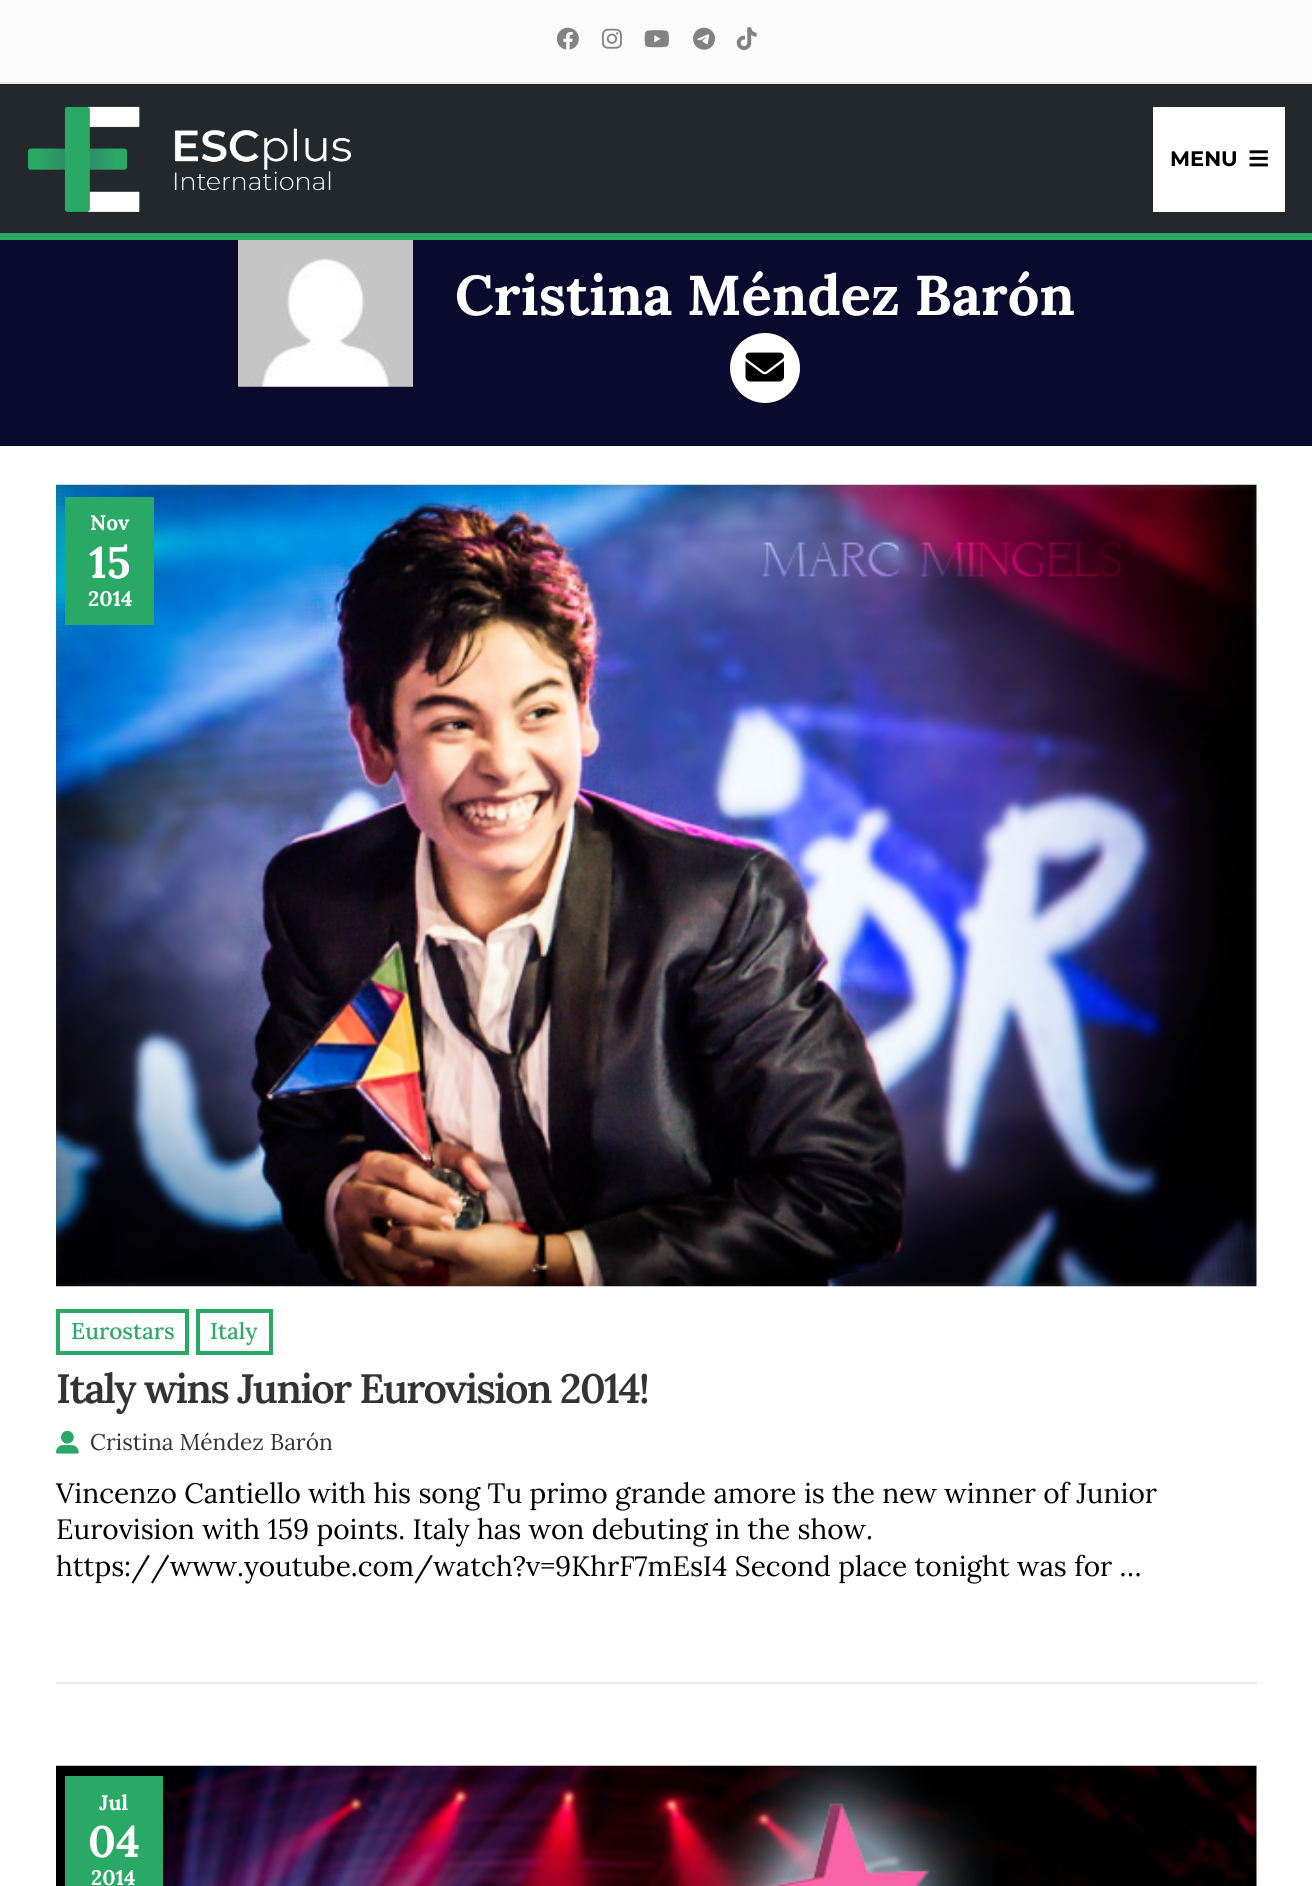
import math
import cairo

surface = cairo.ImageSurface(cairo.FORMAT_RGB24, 1312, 1886)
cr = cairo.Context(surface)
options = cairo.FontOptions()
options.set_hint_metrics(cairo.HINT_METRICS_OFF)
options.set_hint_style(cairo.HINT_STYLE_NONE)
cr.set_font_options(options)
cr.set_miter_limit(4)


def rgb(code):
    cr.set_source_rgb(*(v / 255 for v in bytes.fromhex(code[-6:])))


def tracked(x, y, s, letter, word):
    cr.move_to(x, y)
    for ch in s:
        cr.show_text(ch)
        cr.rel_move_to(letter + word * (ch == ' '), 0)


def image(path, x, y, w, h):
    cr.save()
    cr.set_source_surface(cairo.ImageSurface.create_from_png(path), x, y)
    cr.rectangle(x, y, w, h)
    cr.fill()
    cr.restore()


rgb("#ffffff")
cr.paint()
for x, y, w, h, color in [
    (0, 84, 1312, 149, "#23282d"),
    (0, 0, 1312, 82, "#fbfbfb"),
    (0, 82, 1312, 2, "#ececec"),
]:
    rgb(color)
    cr.rectangle(x, y, w, h)
    cr.fill()
image("img/1.png", 556, 27, 23, 23)
image("img/2.png", 602, 28, 20, 21)
image("img/3.png", 644, 30, 25, 18)
image("img/4.png", 693, 27, 22, 23)
image("img/5.png", 736, 27, 21, 24)
rgb("#2aa865")
cr.rectangle(0, 233, 1312, 7)
cr.fill()
image("img/6.png", 28, 106, 323, 106)
rgb("#ffffff")
cr.rectangle(1153, 107, 132, 105)
cr.fill()
image("img/7.png", 1249, 150, 19, 17)
rgb("#090a2e")
cr.rectangle(0, 240, 1312, 206)
cr.fill()
image("img/8.png", 238, 240, 175, 147)
rgb("#ffffff")
cr.arc(765, 368, 35, 0, 2 * math.pi)
cr.fill()
image("img/9.png", 745, 352, 39, 30)
rgb("#ececec")
cr.rectangle(56, 1682, 1201, 2)
cr.fill()
image("img/10.png", 56, 484, 1201, 803)
rgb("#2aa865")
cr.rectangle(65, 497, 89, 128)
cr.fill()
cr.rectangle(58, 1311, 129, 42)
cr.set_line_width(4)
cr.stroke()
cr.rectangle(198, 1311, 73, 42)
cr.stroke()
image("img/11.png", 56, 1430, 23, 24)
image("img/12.png", 56, 1765, 1201, 121)
cr.rectangle(65, 1776, 98, 110)
cr.fill()
cr.select_font_face("Montserrat", cairo.FONT_SLANT_NORMAL, cairo.FONT_WEIGHT_BOLD)
cr.set_font_size(21)
rgb("#000000")
cr.move_to(1170, 166)
cr.show_text("MENU")
cr.select_font_face("Lora", cairo.FONT_SLANT_NORMAL, cairo.FONT_WEIGHT_BOLD)
cr.set_font_size(56)
rgb("#ffffff")
cr.move_to(455, 315)
cr.show_text("Cristina Méndez Barón")
cr.set_font_size(21)
cr.move_to(90, 530)
cr.show_text("Nov")
cr.set_font_size(44)
cr.move_to(89, 578)
cr.show_text("15")
cr.set_font_size(21)
cr.move_to(88, 606)
cr.show_text("2014")
cr.select_font_face("Lora Medium")
cr.set_font_size(22.75)
rgb("#2aa865")
cr.move_to(71, 1339)
cr.show_text("Eurostars")
cr.move_to(210, 1339)
cr.show_text("Italy")
cr.select_font_face("Lora SemiBold")
cr.set_font_size(41)
rgb("#333333")
tracked(56, 1403, "Italy wins Junior Eurovision 2014!", -1.75, 0)
cr.select_font_face("Lora")
cr.set_font_size(22.75)
cr.move_to(90, 1450)
cr.show_text("Cristina Méndez Barón")
cr.set_font_size(28)
rgb("#000000")
for x, y, s in [
    (56, 1503, "Vincenzo Cantiello with his song Tu primo grande amore is the new winner of Junior"),
    (56, 1539, "Eurovision with 159 points. Italy has won debuting in the show."),
    (56, 1576, "https://www.youtube.com/watch?v=9KhrF7mEsI4 Second place tonight was for …"),
]:
    cr.move_to(x, y)
    cr.show_text(s)
cr.select_font_face("Lora", cairo.FONT_SLANT_NORMAL, cairo.FONT_WEIGHT_BOLD)
cr.set_font_size(21)
rgb("#ffffff")
cr.move_to(99, 1810)
cr.show_text("Jul")
cr.set_font_size(44)
cr.move_to(88, 1857)
cr.show_text("04")
cr.set_font_size(21)
cr.move_to(91, 1885)
cr.show_text("2014")
surface.write_to_png("page.png")
